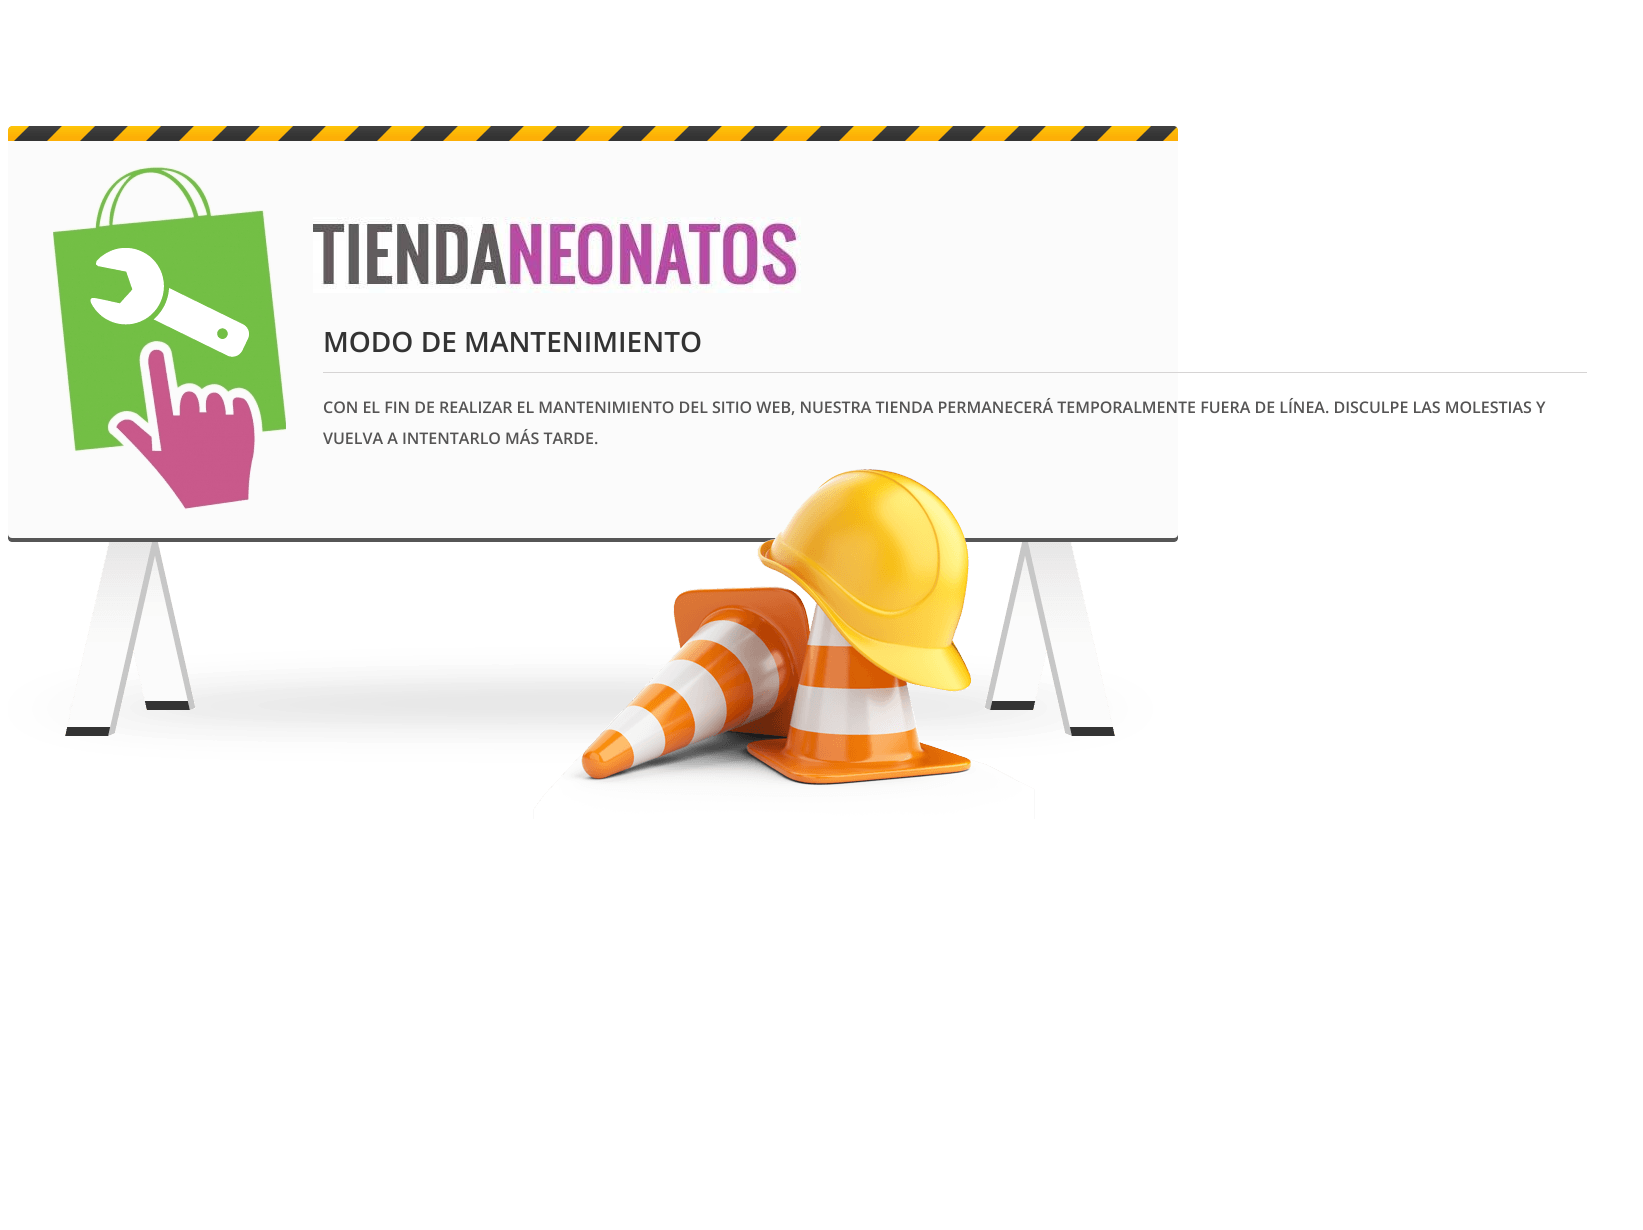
import math
import cairo

surface = cairo.ImageSurface(cairo.FORMAT_RGB24, 1643, 1230)
cr = cairo.Context(surface)
options = cairo.FontOptions()
options.set_hint_metrics(cairo.HINT_METRICS_OFF)
options.set_hint_style(cairo.HINT_STYLE_NONE)
cr.set_font_options(options)
cr.set_miter_limit(4)


def rgb(code):
    cr.set_source_rgb(*(v / 255 for v in bytes.fromhex(code[-6:])))


def image(path, x, y, w, h):
    cr.save()
    cr.set_source_surface(cairo.ImageSurface.create_from_png(path), x, y)
    cr.rectangle(x, y, w, h)
    cr.fill()
    cr.restore()


rgb("#ffffff")
cr.paint()
image("img/1.png", 8, 126, 1170, 693)
image("img/2.png", 313, 217, 488, 76)
rgb("#d6d4d4")
cr.rectangle(323, 372, 1264, 1)
cr.fill()
cr.select_font_face("Open Sans SemiBold")
cr.set_font_size(28)
rgb("#333333")
cr.move_to(323, 352)
cr.show_text("MODO DE MANTENIMIENTO")
cr.set_font_size(16)
rgb("#555454")
cr.move_to(323, 413)
cr.show_text("CON EL FIN DE REALIZAR EL MANTENIMIENTO DEL SITIO WEB, NUESTRA TIENDA PERMANECERÁ TEMPORALMENTE FUERA DE LÍNEA. DISCULPE LAS MOLESTIAS Y")
cr.move_to(323, 444)
cr.show_text("VUELVA A INTENTARLO MÁS TARDE.")
surface.write_to_png("page.png")
